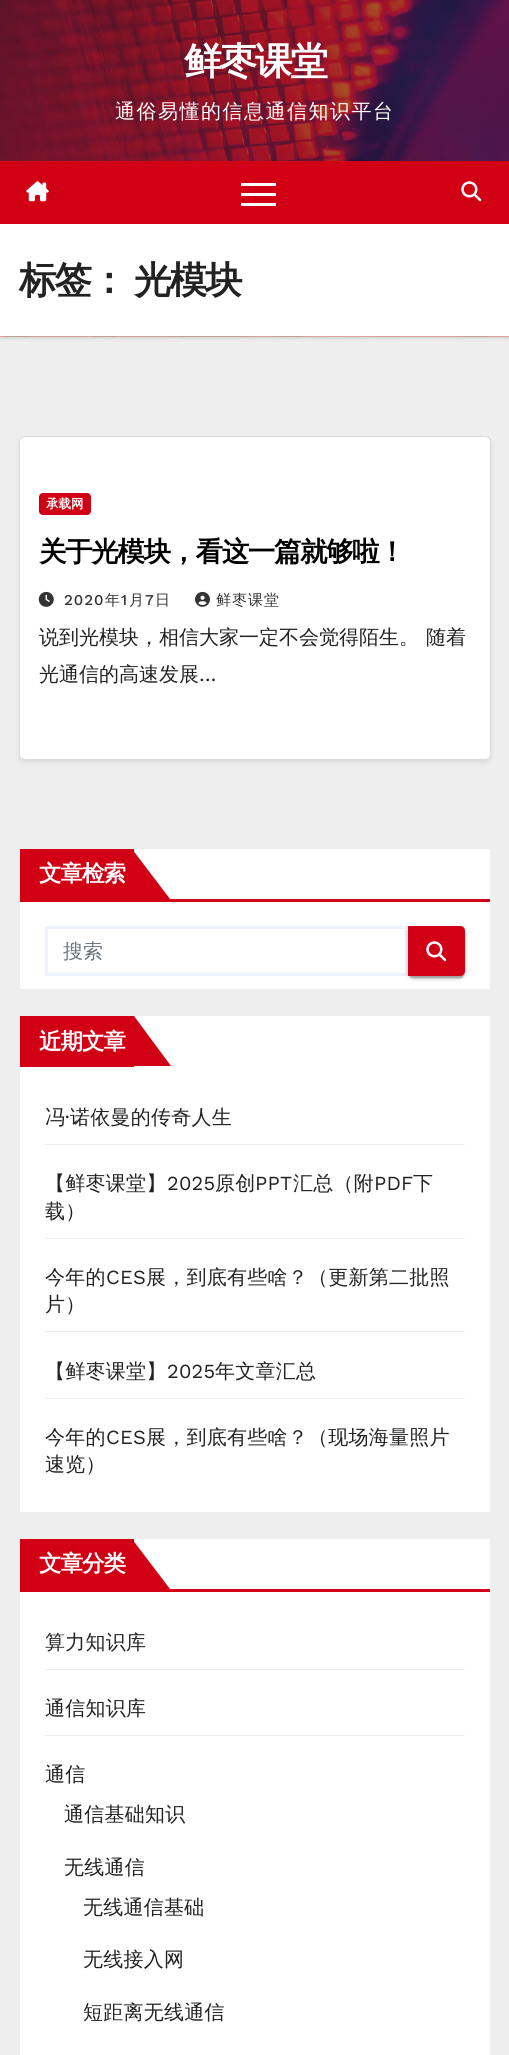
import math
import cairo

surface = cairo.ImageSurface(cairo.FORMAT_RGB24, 509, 2055)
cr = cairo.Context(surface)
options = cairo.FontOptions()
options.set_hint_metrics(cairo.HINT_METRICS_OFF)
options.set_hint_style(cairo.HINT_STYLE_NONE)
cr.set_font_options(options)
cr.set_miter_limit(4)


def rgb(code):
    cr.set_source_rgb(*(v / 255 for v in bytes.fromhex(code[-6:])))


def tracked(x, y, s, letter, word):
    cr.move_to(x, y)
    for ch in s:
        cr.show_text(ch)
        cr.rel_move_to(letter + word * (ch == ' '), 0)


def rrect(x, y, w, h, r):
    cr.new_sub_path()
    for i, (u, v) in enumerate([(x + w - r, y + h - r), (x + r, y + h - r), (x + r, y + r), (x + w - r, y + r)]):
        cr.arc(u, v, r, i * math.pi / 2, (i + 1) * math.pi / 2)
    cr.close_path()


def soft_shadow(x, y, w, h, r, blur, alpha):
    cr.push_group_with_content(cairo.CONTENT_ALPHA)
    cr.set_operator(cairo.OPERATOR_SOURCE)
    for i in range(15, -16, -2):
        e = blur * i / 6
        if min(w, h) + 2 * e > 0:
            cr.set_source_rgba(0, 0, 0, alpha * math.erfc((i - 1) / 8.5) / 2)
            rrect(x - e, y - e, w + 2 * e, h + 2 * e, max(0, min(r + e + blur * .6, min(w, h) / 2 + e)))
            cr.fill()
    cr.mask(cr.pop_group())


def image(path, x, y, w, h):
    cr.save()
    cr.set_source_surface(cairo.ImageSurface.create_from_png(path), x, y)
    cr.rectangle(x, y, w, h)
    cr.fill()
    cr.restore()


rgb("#eeeeee")
cr.paint()
image("img/1.png", 0, 0, 509, 161)
rgb("#000000")
soft_shadow(0, 225, 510, 113, 0, 2, 0.15)
rgb("#d10014")
cr.rectangle(0, 161, 509, 63)
cr.fill()
image("img/2.png", 26, 181, 23, 21)
for x, y, w, h, color in [
    (241, 183, 35, 3, "#ffffff"),
    (241, 193, 35, 3, "#ffffff"),
    (241, 203, 35, 3, "#ffffff"),
]:
    rgb(color)
    cr.rectangle(x, y, w, h)
    cr.fill()
image("img/3.png", 461, 181, 21, 21)
image("img/4.png", 0, 336, 509, 1)
cr.rectangle(0, 224, 509, 112)
cr.fill()
rgb("#000000")
soft_shadow(19, 439, 472, 324, 6, 2.5, 0.08)
rgb("#ffffff")
rrect(19.5, 436.5, 471, 323, 5.5)
cr.fill_preserve()
rgb("#dddcdc")
cr.set_line_width(1)
cr.stroke()
rgb("#d10014")
rrect(39, 493, 52, 22, 4)
cr.fill()
image("img/5.png", 38, 591, 16, 16)
image("img/6.png", 195, 591, 15, 16)
for x, y, w, h, color in [
    (20, 849, 470, 140, "#ffffff"),
    (20, 899, 470, 3, "#d10014"),
    (20, 849, 114, 50, "#d10014"),
]:
    rgb(color)
    cr.rectangle(x, y, w, h)
    cr.fill()
cr.new_path()
cr.move_to(132, 899)
cr.line_to(132, 849)
cr.line_to(170, 899)
cr.close_path()
cr.fill()
cr.rectangle(46.5, 927.5, 360, 47)
rgb("#eef3fb")
cr.set_line_width(3)
cr.stroke()
rgb("#000000")
soft_shadow(408, 928, 57, 50, 5, 3, 0.12)
soft_shadow(410, 933, 53, 45, 2.5, 0.5, 0.2)
soft_shadow(408, 929, 57, 50, 5, 1, 0.14)
rgb("#d10014")
cr.new_path()
cr.move_to(408, 926)
cr.line_to(460, 926)
cr.curve_to(463, 926, 465, 928, 465, 931)
cr.line_to(465, 971)
cr.curve_to(465, 974, 463, 976, 460, 976)
cr.line_to(408, 976)
cr.close_path()
cr.fill()
image("img/3.png", 426, 941, 21, 21)
rgb("#ffffff")
cr.rectangle(20, 1016, 470, 496)
cr.fill()
rgb("#d10014")
cr.rectangle(20, 1016, 114, 51)
cr.fill()
cr.new_path()
cr.move_to(134, 1066)
cr.line_to(134, 1016)
cr.line_to(171, 1066)
cr.close_path()
cr.fill()
for x, y, w, h, color in [
    (45, 1144, 420, 1, "#eeeeee"),
    (45, 1238, 420, 1, "#eeeeee"),
    (45, 1331, 420, 1, "#eeeeee"),
    (45, 1398, 420, 1, "#eeeeee"),
    (20, 1539, 470, 516, "#ffffff"),
    (20, 1589, 470, 3, "#d10014"),
    (20, 1539, 114, 50, "#d10014"),
]:
    rgb(color)
    cr.rectangle(x, y, w, h)
    cr.fill()
cr.new_path()
cr.move_to(132, 1589)
cr.line_to(132, 1539)
cr.line_to(170, 1589)
cr.close_path()
cr.fill()
rgb("#eeeeee")
cr.rectangle(45, 1669, 420, 1)
cr.fill()
cr.rectangle(45, 1735, 420, 1)
cr.fill()
cr.select_font_face("WenQuanYi Zen Hei", cairo.FONT_SLANT_NORMAL, cairo.FONT_WEIGHT_BOLD)
cr.set_font_size(37.5)
rgb("#ffffff")
tracked(184, 74, "鲜枣课堂", -2, 0)
cr.select_font_face("WenQuanYi Zen Hei Medium")
cr.set_font_size(20)
tracked(115, 118, "通俗易懂的信息通信知识平台", 1.5, 0)
cr.select_font_face("WenQuanYi Zen Hei", cairo.FONT_SLANT_NORMAL, cairo.FONT_WEIGHT_BOLD)
cr.set_font_size(37.5)
rgb("#222222")
tracked(19, 293, "标签：", -2, 0)
tracked(134, 293, "光模块", -2, 0)
cr.set_font_size(12.5)
rgb("#ffffff")
cr.move_to(46, 508)
cr.show_text("承载网")
cr.set_font_size(27.5)
rgb("#000000")
tracked(39, 561, "关于光模块，看这一篇就够啦！", -1.4, 0)
cr.select_font_face("Work Sans Medium")
cr.set_font_size(15)
rgb("#333333")
tracked(64, 605, "2020", 1, 0)
cr.select_font_face("WenQuanYi Zen Hei Medium")
tracked(105, 605, "年", 1, 0)
cr.select_font_face("Work Sans Medium")
tracked(121, 605, "1", 1, 0)
cr.select_font_face("WenQuanYi Zen Hei Medium")
tracked(129, 605, "月", 1, 0)
cr.select_font_face("Work Sans Medium")
tracked(145, 605, "7", 1, 0)
cr.select_font_face("WenQuanYi Zen Hei Medium")
tracked(155, 605, "日", 1, 0)
tracked(216, 605, "鲜枣课堂", 1, 0)
cr.set_font_size(20)
rgb("#222222")
tracked(39, 644, "说到光模块，相信大家一定不会觉得陌生。 随着", 0, 1)
cr.move_to(39, 681)
cr.show_text("光通信的高速发展")
cr.select_font_face("Work Sans")
cr.move_to(199, 681)
cr.show_text("…")
cr.select_font_face("WenQuanYi Zen Hei", cairo.FONT_SLANT_NORMAL, cairo.FONT_WEIGHT_BOLD)
cr.set_font_size(22.5)
rgb("#ffffff")
tracked(39, 881, "文章检索", -1, 0)
cr.select_font_face("WenQuanYi Zen Hei Medium")
cr.set_font_size(20)
rgb("#6c757d")
cr.move_to(63, 958)
cr.show_text("搜索")
cr.select_font_face("WenQuanYi Zen Hei", cairo.FONT_SLANT_NORMAL, cairo.FONT_WEIGHT_BOLD)
cr.set_font_size(22.5)
rgb("#ffffff")
tracked(39, 1049, "近期文章", -1, 0)
cr.select_font_face("WenQuanYi Zen Hei Medium")
cr.set_font_size(20)
rgb("#222222")
tracked(45, 1124, "冯", 0.25, 0)
cr.select_font_face("Work Sans")
tracked(65, 1124, "·", 0.25, 0)
cr.select_font_face("WenQuanYi Zen Hei Medium")
tracked(70, 1124, "诺依曼的传奇人生", 0.25, 0)
tracked(45, 1190, "【鲜枣课堂】", 0.25, 0)
cr.select_font_face("Work Sans")
tracked(167, 1190, "2025", 0.25, 0)
cr.select_font_face("WenQuanYi Zen Hei Medium")
tracked(215, 1190, "原创", 0.25, 0)
cr.select_font_face("Work Sans")
tracked(255, 1190, "PPT", 0.25, 0)
cr.select_font_face("WenQuanYi Zen Hei Medium")
tracked(293, 1190, "汇总（附", 0.25, 0)
cr.select_font_face("Work Sans")
tracked(374, 1190, "PDF", 0.25, 0)
cr.select_font_face("WenQuanYi Zen Hei Medium")
for x, y, s in [
    (413, 1190, "下"),
    (45, 1218, "载）"),
    (45, 1284, "今年的"),
]:
    tracked(x, y, s, 0.25, 0)
cr.select_font_face("Work Sans")
tracked(106, 1284, "CES", 0.25, 0)
cr.select_font_face("WenQuanYi Zen Hei Medium")
for x, y, s in [
    (146, 1284, "展，到底有些啥？（更新第二批照"),
    (45, 1311, "片）"),
    (45, 1378, "【鲜枣课堂】"),
]:
    tracked(x, y, s, 0.25, 0)
cr.select_font_face("Work Sans")
tracked(167, 1378, "2025", 0.25, 0)
cr.select_font_face("WenQuanYi Zen Hei Medium")
tracked(215, 1378, "年文章汇总", 0.25, 0)
tracked(45, 1444, "今年的", 0.25, 0)
cr.select_font_face("Work Sans")
tracked(106, 1444, "CES", 0.25, 0)
cr.select_font_face("WenQuanYi Zen Hei Medium")
tracked(146, 1444, "展，到底有些啥？（现场海量照片", 0.25, 0)
tracked(45, 1471, "速览）", 0.25, 0)
cr.select_font_face("WenQuanYi Zen Hei", cairo.FONT_SLANT_NORMAL, cairo.FONT_WEIGHT_BOLD)
cr.set_font_size(22.5)
rgb("#ffffff")
tracked(39, 1571, "文章分类", -1, 0)
cr.select_font_face("WenQuanYi Zen Hei Medium")
cr.set_font_size(20)
rgb("#222222")
for x, y, s in [
    (45, 1649, "算力知识库"),
    (45, 1715, "通信知识库"),
    (45, 1781, "通信"),
    (64, 1821, "通信基础知识"),
    (64, 1874, "无线通信"),
    (83, 1914, "无线通信基础"),
    (83, 1966, "无线接入网"),
    (83, 2019, "短距离无线通信"),
]:
    tracked(x, y, s, 0.25, 0)
surface.write_to_png("page.png")
